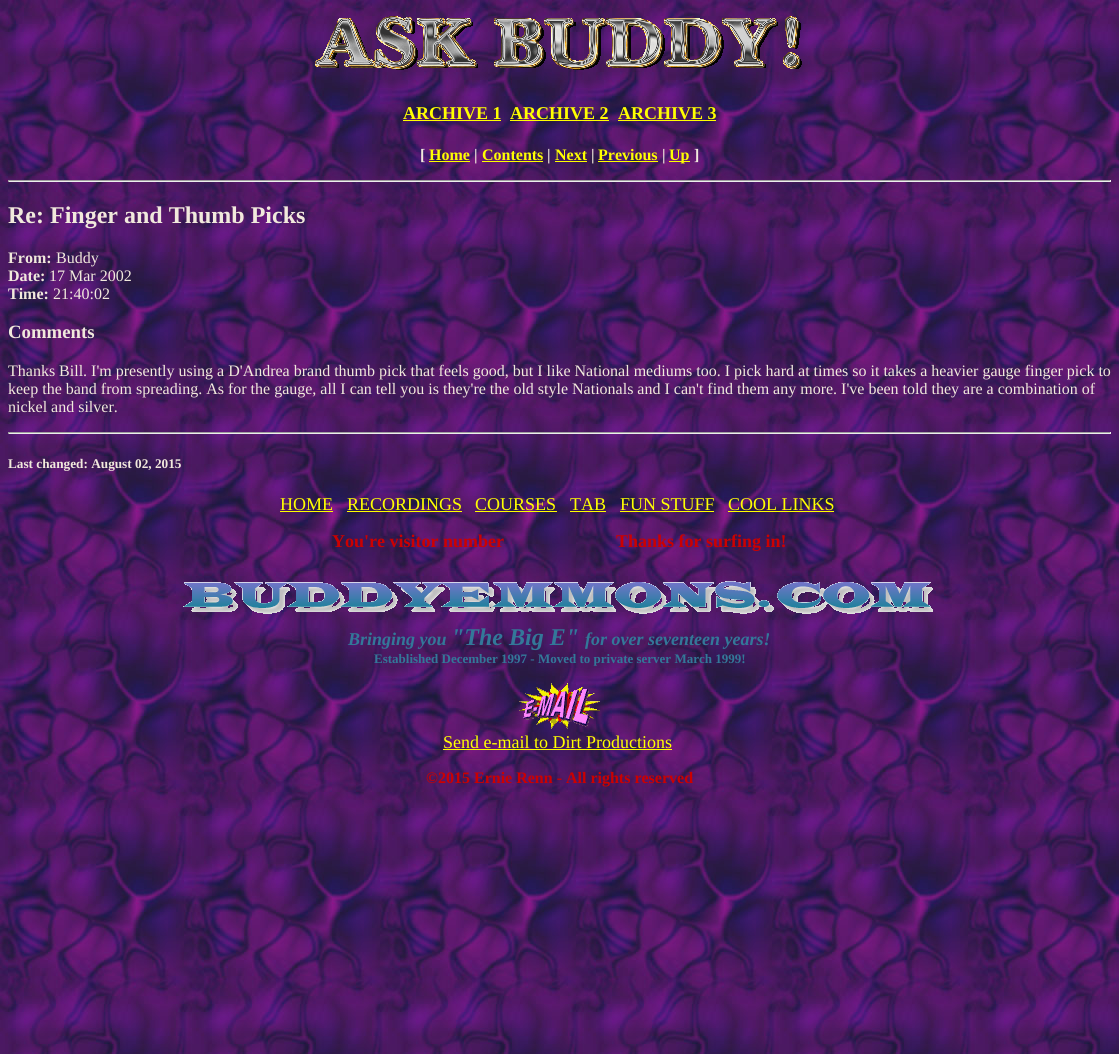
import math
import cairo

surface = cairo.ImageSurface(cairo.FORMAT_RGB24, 1119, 1054)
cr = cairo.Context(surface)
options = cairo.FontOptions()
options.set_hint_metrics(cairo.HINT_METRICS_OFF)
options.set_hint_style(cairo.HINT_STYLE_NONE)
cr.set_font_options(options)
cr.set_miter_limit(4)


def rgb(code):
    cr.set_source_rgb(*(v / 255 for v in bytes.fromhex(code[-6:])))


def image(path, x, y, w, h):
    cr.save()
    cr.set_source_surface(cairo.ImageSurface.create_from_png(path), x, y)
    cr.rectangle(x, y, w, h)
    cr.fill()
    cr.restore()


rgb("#ffffff")
cr.paint()
image("img/1.png", 0, 0, 1119, 1054)
image("img/2.png", 315, 16, 487, 54)
for x, y, w, h, color in [
    (403, 120, 98, 1, "#ffff00"),
    (510, 120, 99, 1, "#ffff00"),
    (618, 120, 98, 1, "#ffff00"),
    (429, 161, 41, 1, "#ffff00"),
    (482, 161, 61, 1, "#ffff00"),
    (555, 161, 32, 1, "#ffff00"),
    (598, 161, 60, 1, "#ffff00"),
    (669, 161, 21, 1, "#ffff00"),
    (8, 180, 1103, 1, "#9f9f9f"),
    (1110, 180, 1, 2, "#eeeeee"),
    (8, 181, 1103, 1, "#eeeeee"),
    (8, 180, 1, 2, "#9f9f9f"),
    (8, 432, 1103, 1, "#9f9f9f"),
    (1110, 432, 1, 2, "#eeeeee"),
    (8, 433, 1103, 1, "#eeeeee"),
    (8, 432, 1, 2, "#9f9f9f"),
    (280, 511, 53, 1, "#ffff00"),
    (347, 511, 115, 1, "#ffff00"),
    (475, 511, 82, 1, "#ffff00"),
    (570, 511, 36, 1, "#ffff00"),
    (620, 511, 94, 1, "#ffff00"),
    (728, 511, 106, 1, "#ffff00"),
]:
    rgb(color)
    cr.rectangle(x, y, w, h)
    cr.fill()
image("img/3.png", 183, 581, 750, 33)
image("img/4.png", 519, 683, 81, 46)
cr.rectangle(443, 749, 229, 1)
cr.fill()
cr.select_font_face("Liberation Serif", cairo.FONT_SLANT_NORMAL, cairo.FONT_WEIGHT_BOLD)
cr.set_font_size(18)
for x, y, s in [
    (403, 119, "ARCHIVE 1"),
    (510, 119, "ARCHIVE 2"),
    (618, 119, "ARCHIVE 3"),
]:
    cr.move_to(x, y)
    cr.show_text(s)
cr.set_font_size(16)
rgb("#f1e9dc")
cr.move_to(420, 160)
cr.show_text("[")
rgb("#ffff00")
cr.move_to(429, 160)
cr.show_text("Home")
rgb("#f1e9dc")
cr.move_to(474, 160)
cr.show_text("|")
rgb("#ffff00")
cr.move_to(482, 160)
cr.show_text("Contents")
rgb("#f1e9dc")
cr.move_to(547, 160)
cr.show_text("|")
rgb("#ffff00")
cr.move_to(555, 160)
cr.show_text("Next")
rgb("#f1e9dc")
cr.move_to(591, 160)
cr.show_text("|")
rgb("#ffff00")
cr.move_to(598, 160)
cr.show_text("Previous")
rgb("#f1e9dc")
cr.move_to(662, 160)
cr.show_text("|")
rgb("#ffff00")
cr.move_to(669, 160)
cr.show_text("Up")
rgb("#f1e9dc")
cr.move_to(694, 160)
cr.show_text("]")
cr.set_font_size(24)
cr.move_to(8, 223)
cr.show_text("Re: Finger and Thumb Picks")
cr.set_font_size(16)
cr.move_to(8, 263)
cr.show_text("From:")
cr.select_font_face("Liberation Serif")
cr.move_to(56, 263)
cr.show_text("Buddy")
cr.select_font_face("Liberation Serif", cairo.FONT_SLANT_NORMAL, cairo.FONT_WEIGHT_BOLD)
cr.move_to(8, 281)
cr.show_text("Date:")
cr.select_font_face("Liberation Serif")
cr.move_to(49, 281)
cr.show_text("17 Mar 2002")
cr.select_font_face("Liberation Serif", cairo.FONT_SLANT_NORMAL, cairo.FONT_WEIGHT_BOLD)
cr.move_to(8, 299)
cr.show_text("Time:")
cr.select_font_face("Liberation Serif")
cr.move_to(53, 299)
cr.show_text("21:40:02")
cr.select_font_face("Liberation Serif", cairo.FONT_SLANT_NORMAL, cairo.FONT_WEIGHT_BOLD)
cr.set_font_size(18.75)
cr.move_to(8, 338)
cr.show_text("Comments")
cr.select_font_face("Liberation Serif")
cr.set_font_size(16)
for x, y, s in [
    (8, 376, "Thanks Bill. I'm presently using a D'Andrea brand thumb pick that feels good, but I like National mediums too. I pick hard at times so it takes a heavier gauge finger pick to"),
    (8, 394, "keep the band from spreading. As for the gauge, all I can tell you is they're the old style Nationals and I can't find them any more. I've been told they are a combination of"),
    (8, 412, "nickel and silver."),
]:
    cr.move_to(x, y)
    cr.show_text(s)
cr.select_font_face("Liberation Serif", cairo.FONT_SLANT_NORMAL, cairo.FONT_WEIGHT_BOLD)
cr.set_font_size(13.25)
cr.move_to(8, 468)
cr.show_text("Last changed: August 02, 2015")
cr.select_font_face("Liberation Serif")
cr.set_font_size(18)
rgb("#ffff00")
for x, y, s in [
    (280, 510, "HOME"),
    (347, 510, "RECORDINGS"),
    (475, 510, "COURSES"),
    (570, 510, "TAB"),
    (620, 510, "FUN STUFF"),
    (728, 510, "COOL LINKS"),
]:
    cr.move_to(x, y)
    cr.show_text(s)
cr.select_font_face("Liberation Serif", cairo.FONT_SLANT_NORMAL, cairo.FONT_WEIGHT_BOLD)
rgb("#cc0000")
cr.move_to(332, 547)
cr.show_text("You're visitor number")
cr.move_to(616, 547)
cr.show_text("Thanks for surfing in!")
cr.select_font_face("Liberation Serif", cairo.FONT_SLANT_ITALIC, cairo.FONT_WEIGHT_BOLD)
rgb("#337899")
cr.move_to(348, 645)
cr.show_text("Bringing you")
cr.set_font_size(24)
cr.move_to(451, 645)
cr.show_text("\"The Big E\"")
cr.set_font_size(18)
cr.move_to(585, 645)
cr.show_text("for over seventeen years!")
cr.select_font_face("Liberation Serif", cairo.FONT_SLANT_NORMAL, cairo.FONT_WEIGHT_BOLD)
cr.set_font_size(13)
cr.move_to(374, 663)
cr.show_text("Established December 1997 - Moved to private server March 1999!")
cr.select_font_face("Liberation Serif")
cr.set_font_size(18)
rgb("#ffff00")
cr.move_to(443, 748)
cr.show_text("Send e-mail to Dirt Productions")
cr.select_font_face("Liberation Serif", cairo.FONT_SLANT_NORMAL, cairo.FONT_WEIGHT_BOLD)
cr.set_font_size(16)
rgb("#cc0000")
cr.move_to(426, 783)
cr.show_text("©2015 Ernie Renn - All rights reserved")
surface.write_to_png("page.png")
